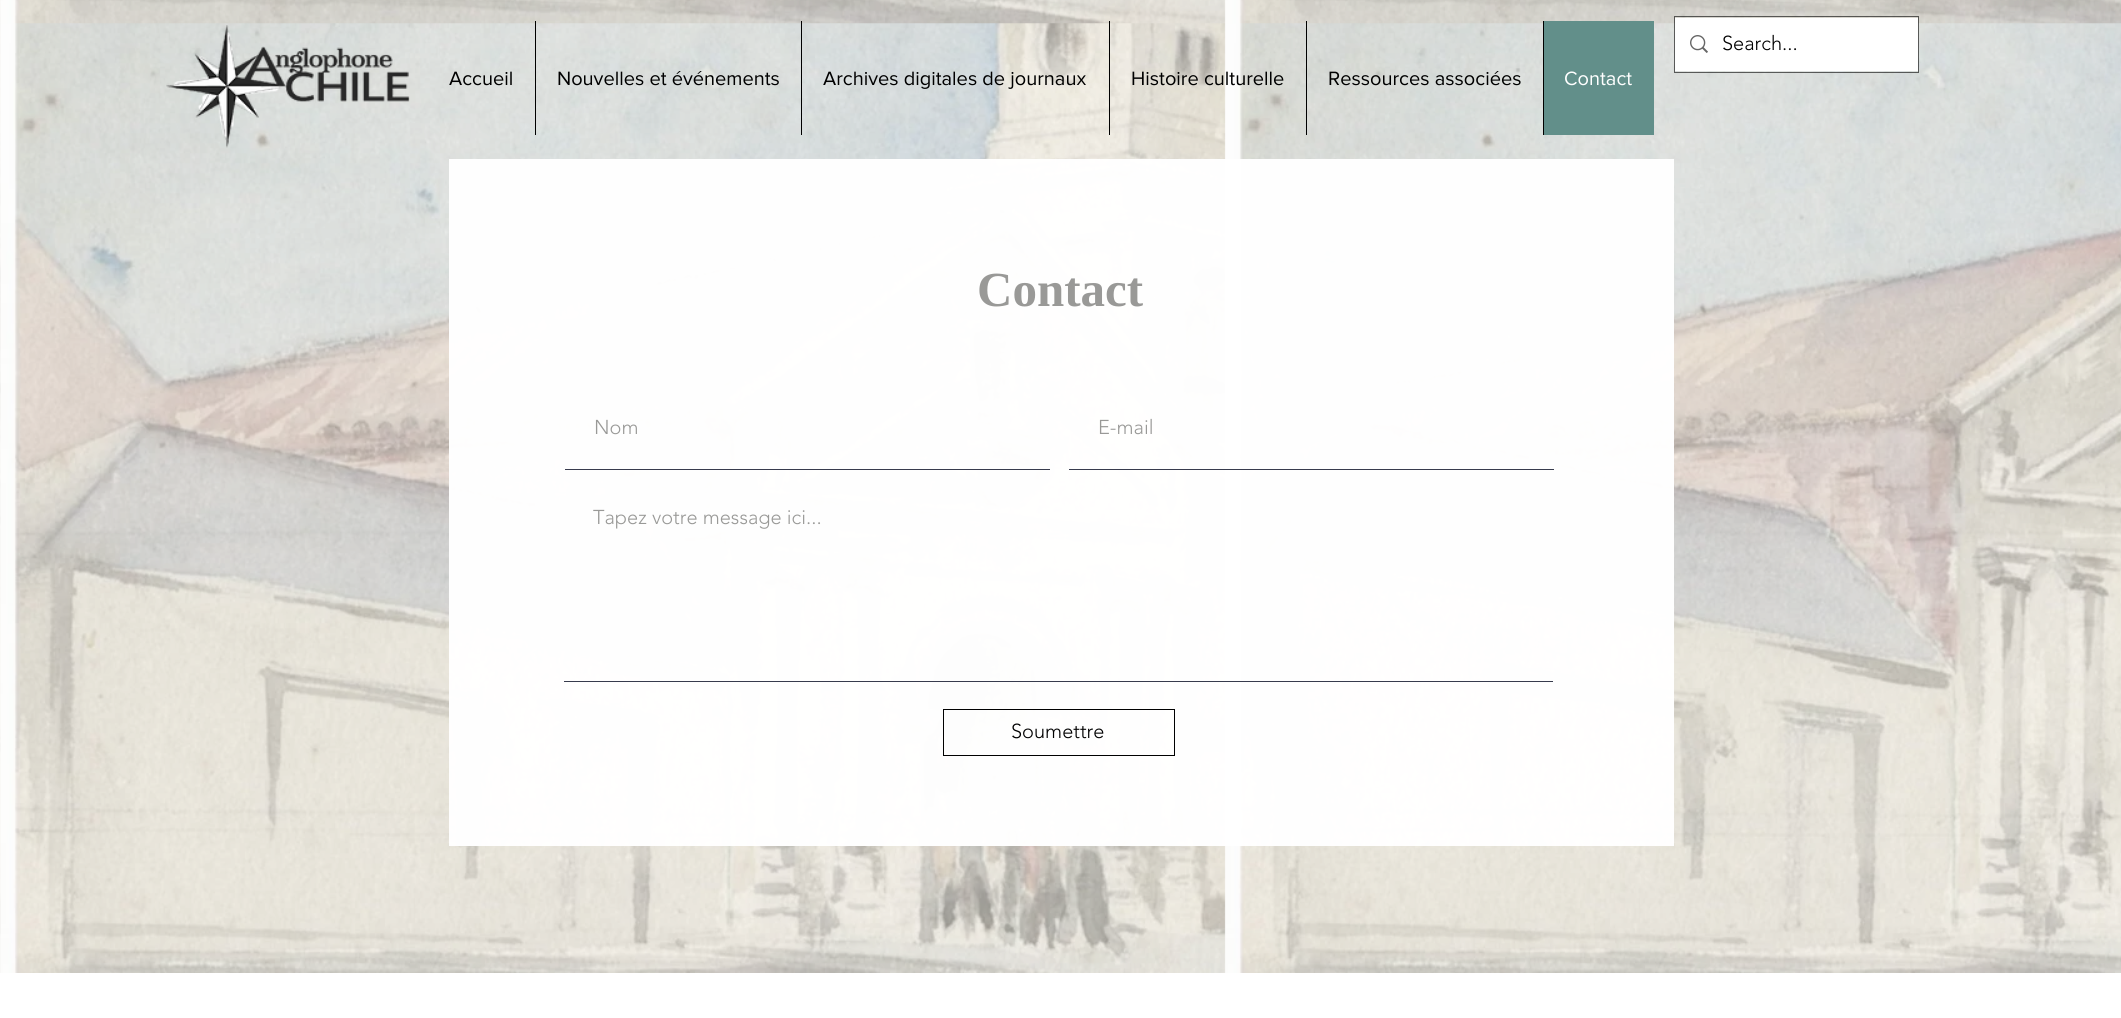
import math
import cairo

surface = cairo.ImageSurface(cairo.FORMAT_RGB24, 2121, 1018)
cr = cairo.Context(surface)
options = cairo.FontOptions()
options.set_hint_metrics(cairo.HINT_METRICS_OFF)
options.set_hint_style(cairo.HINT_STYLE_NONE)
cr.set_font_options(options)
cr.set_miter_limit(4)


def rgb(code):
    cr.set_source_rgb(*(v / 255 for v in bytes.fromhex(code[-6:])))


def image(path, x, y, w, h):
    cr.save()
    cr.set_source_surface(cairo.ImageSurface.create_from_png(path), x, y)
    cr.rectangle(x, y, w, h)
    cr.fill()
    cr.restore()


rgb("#ffffff")
cr.paint()
rgb("#fafafa")
cr.rectangle(0, 0, 2121, 973)
cr.fill()
image("img/3.png", 0, 0, 2121, 973)
image("img/1.png", 166, 25, 244, 123)
cr.rectangle(1674.5, 16.5, 244, 56)
cr.set_source_rgba(0, 0, 0, 0.6)
cr.set_line_width(1)
cr.stroke()
rgb("#ffffff")
cr.rectangle(1675, 18, 243, 53)
cr.fill()
image("img/2.png", 1690, 35, 18, 18)
rgb("#000000")
cr.rectangle(535, 21, 1, 114)
cr.rectangle(801, 21, 1, 114)
cr.rectangle(1109, 21, 1, 114)
cr.rectangle(1306, 21, 1, 114)
cr.fill()
rgb("#628f8a")
cr.rectangle(1544, 21, 110, 114)
cr.fill()
rgb("#000000")
cr.rectangle(1543, 21, 1, 114)
cr.fill()
cr.set_source_rgba(1, 1, 1, 0.98)
cr.rectangle(449, 159, 1225, 687)
cr.fill()
rgb("#373b4d")
cr.rectangle(565, 469, 485, 1)
cr.rectangle(1069, 469, 485, 1)
cr.rectangle(564, 681, 989, 1)
cr.fill()
cr.rectangle(943.5, 709.5, 231, 46)
rgb("#000000")
cr.stroke()
cr.select_font_face("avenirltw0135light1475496 Light")
cr.set_font_size(20)
cr.move_to(1722, 50)
cr.show_text("Search...")
cr.select_font_face("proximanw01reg")
for x, y, s in [
    (449, 85, "Accueil"),
    (557, 85, "Nouvelles et événements"),
    (823, 85, "Archives digitales de journaux"),
    (1131, 85, "Histoire culturelle"),
    (1328, 85, "Ressources associées"),
]:
    cr.move_to(x, y)
    cr.show_text(s)
rgb("#ffffff")
cr.move_to(1564, 85)
cr.show_text("Contact")
cr.select_font_face("Liberation Serif", cairo.FONT_SLANT_NORMAL, cairo.FONT_WEIGHT_BOLD)
cr.set_font_size(49)
rgb("#999997")
cr.move_to(977, 306)
cr.show_text("Contact")
cr.select_font_face("avenirltw0135light1475496 Light")
cr.set_font_size(20)
for x, y, s in [
    (594, 434, "Nom"),
    (1098, 434, "E-mail"),
    (593, 524, "Tapez votre message ici..."),
]:
    cr.move_to(x, y)
    cr.show_text(s)
rgb("#000000")
cr.move_to(1011, 738)
cr.show_text("Soumettre")
surface.write_to_png("page.png")
